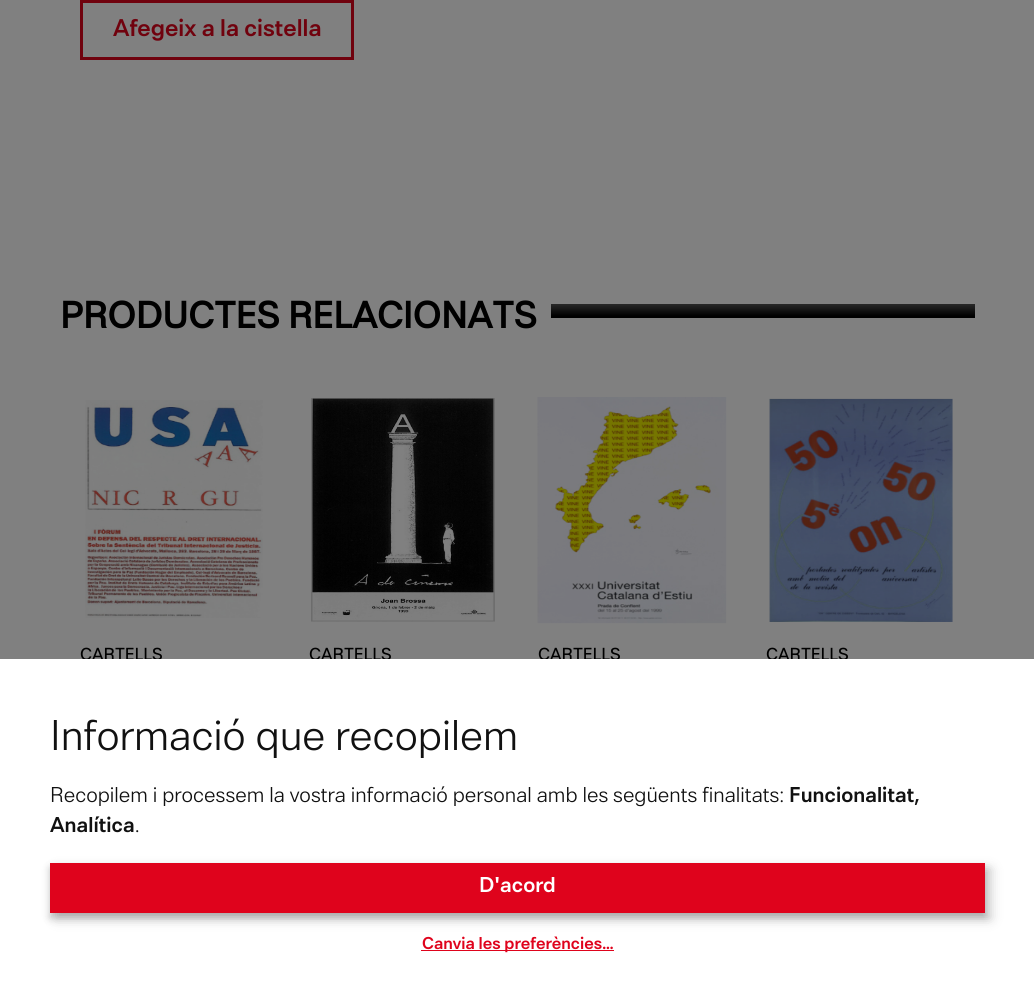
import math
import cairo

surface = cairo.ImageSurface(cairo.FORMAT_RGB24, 1034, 1006)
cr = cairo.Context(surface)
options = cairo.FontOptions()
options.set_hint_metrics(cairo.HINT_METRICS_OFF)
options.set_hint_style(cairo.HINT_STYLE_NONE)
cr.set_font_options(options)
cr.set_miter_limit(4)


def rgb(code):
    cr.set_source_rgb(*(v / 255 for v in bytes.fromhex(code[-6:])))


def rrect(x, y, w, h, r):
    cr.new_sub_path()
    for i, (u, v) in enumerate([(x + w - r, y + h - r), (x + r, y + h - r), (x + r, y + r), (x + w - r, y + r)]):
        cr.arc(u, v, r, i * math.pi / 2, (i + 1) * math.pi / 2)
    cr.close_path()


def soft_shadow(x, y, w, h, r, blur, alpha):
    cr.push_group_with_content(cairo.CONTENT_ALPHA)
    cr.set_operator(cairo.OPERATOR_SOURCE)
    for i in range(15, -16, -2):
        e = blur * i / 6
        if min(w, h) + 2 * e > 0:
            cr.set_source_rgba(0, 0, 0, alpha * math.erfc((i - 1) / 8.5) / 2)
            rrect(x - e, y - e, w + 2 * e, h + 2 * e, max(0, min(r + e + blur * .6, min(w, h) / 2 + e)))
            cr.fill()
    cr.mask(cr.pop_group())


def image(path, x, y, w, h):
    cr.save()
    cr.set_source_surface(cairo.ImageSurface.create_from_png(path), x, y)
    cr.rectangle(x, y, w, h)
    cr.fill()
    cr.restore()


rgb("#808080")
cr.paint()
cr.rectangle(81.5, 1.5, 271, 57)
rgb("#70020e")
cr.set_line_width(3)
cr.stroke()
gradient = cairo.LinearGradient(518, 276, 518, 356)
gradient.add_color_stop_rgba(0, 0.502, 0.502, 0.502, 1)
gradient.add_color_stop_rgba(0, 0, 0, 0, 1)
gradient.add_color_stop_rgba(0.03, 0, 0, 0, 1)
gradient.add_color_stop_rgba(0.03, 0.502, 0.502, 0.502, 1)
gradient.add_color_stop_rgba(0.5, 0, 0, 0, 1)
gradient.add_color_stop_rgba(0.53, 0, 0, 0, 1)
gradient.add_color_stop_rgba(0.53, 0.502, 0.502, 0.502, 1)
gradient.add_color_stop_rgba(1, 0.502, 0.502, 0.502, 1)
cr.set_source(gradient)
cr.rectangle(60, 304, 915, 14)
cr.fill()
rgb("#808080")
cr.rectangle(60, 304, 491, 14)
cr.fill()
image("img/1.png", 85, 400, 178, 218)
image("img/2.png", 311, 398, 184, 224)
image("img/3.png", 537, 397, 190, 227)
image("img/4.png", 769, 398, 184, 224)
cr.select_font_face("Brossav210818 SemiBold")
cr.set_font_size(22.5)
rgb("#70020e")
cr.move_to(113, 36)
cr.show_text("Afegeix a la cistella")
cr.select_font_face("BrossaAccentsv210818", cairo.FONT_SLANT_NORMAL, cairo.FONT_WEIGHT_BOLD)
cr.set_font_size(35)
rgb("#000000")
cr.move_to(60, 328)
cr.show_text("PRODUCTES RELACIONATS")
cr.select_font_face("Brossav210818 Medium")
cr.set_font_size(16.25)
for x, y, s in [
    (80, 660, "CARTELLS"),
    (309, 660, "CARTELLS"),
    (538, 660, "CARTELLS"),
    (766, 660, "CARTELLS"),
]:
    cr.move_to(x, y)
    cr.show_text(s)
rgb("#ffffff")
cr.rectangle(0, 659, 1034, 347)
cr.fill()
cr.select_font_face("Brossav210818")
cr.set_font_size(40)
rgb("#111111")
cr.move_to(50, 750)
cr.show_text("Informació que recopilem")
cr.set_font_size(20)
cr.move_to(50, 802)
cr.show_text("Recopilem i processem la vostra informació personal amb les següents finalitats:")
cr.select_font_face("Brossav210818 SemiBold")
cr.move_to(789, 802)
cr.show_text("Funcionalitat,")
cr.move_to(50, 832)
cr.show_text("Analítica")
cr.select_font_face("Brossav210818")
cr.move_to(135, 832)
cr.show_text(".")
rgb("#000000")
soft_shadow(56, 869, 935, 50, 0, 6, 0.19)
soft_shadow(50, 868, 935, 50, 0, 4, 0.2)
rgb("#df031c")
cr.rectangle(50, 863, 935, 50)
cr.fill()
cr.select_font_face("Brossav210818 SemiBold")
rgb("#ffffff")
cr.move_to(479, 892)
cr.show_text("D'acord")
rgb("#df031c")
cr.rectangle(421, 950, 193, 1)
cr.fill()
cr.set_font_size(16)
cr.move_to(422, 949)
cr.show_text("Canvia les preferències…")
surface.write_to_png("page.png")
